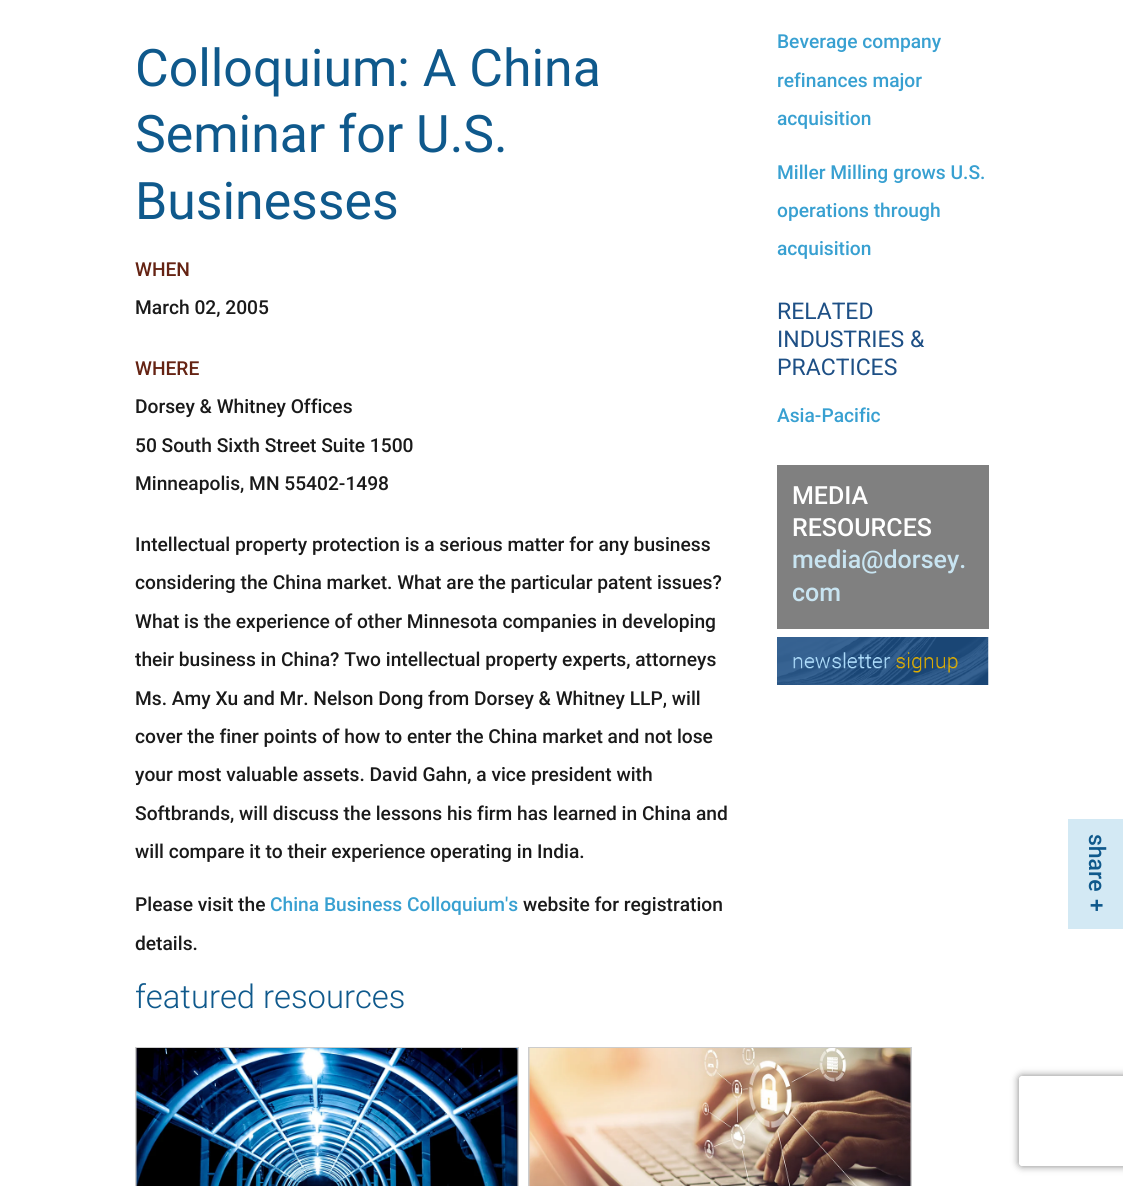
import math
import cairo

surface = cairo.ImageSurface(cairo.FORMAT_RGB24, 1123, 1186)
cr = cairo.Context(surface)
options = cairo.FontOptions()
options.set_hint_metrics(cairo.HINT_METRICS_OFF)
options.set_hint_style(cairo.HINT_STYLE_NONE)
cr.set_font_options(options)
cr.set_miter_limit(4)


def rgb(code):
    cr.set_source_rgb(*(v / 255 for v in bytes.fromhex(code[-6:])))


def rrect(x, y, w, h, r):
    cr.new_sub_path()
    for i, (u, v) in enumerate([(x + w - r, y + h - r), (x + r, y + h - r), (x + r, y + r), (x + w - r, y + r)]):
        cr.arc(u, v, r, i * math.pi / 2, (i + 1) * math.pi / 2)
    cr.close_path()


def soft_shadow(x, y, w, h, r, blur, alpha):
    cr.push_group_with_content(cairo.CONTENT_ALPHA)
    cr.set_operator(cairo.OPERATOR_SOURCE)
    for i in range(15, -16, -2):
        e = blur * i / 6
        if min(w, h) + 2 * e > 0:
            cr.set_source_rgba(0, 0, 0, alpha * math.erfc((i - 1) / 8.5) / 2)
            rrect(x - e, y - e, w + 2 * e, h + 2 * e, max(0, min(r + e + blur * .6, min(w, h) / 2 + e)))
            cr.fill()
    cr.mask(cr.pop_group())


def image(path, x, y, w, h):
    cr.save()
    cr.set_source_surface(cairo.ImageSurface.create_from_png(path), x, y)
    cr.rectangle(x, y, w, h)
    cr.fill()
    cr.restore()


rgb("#ffffff")
cr.paint()
rgb("#808080")
cr.rectangle(777, 465, 212, 164)
cr.fill()
image("img/1.png", 777, 637, 212, 48)
cr.rectangle(136, 1048, 382, 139)
rgb("#cccccc")
cr.stroke()
image("img/2.png", 136, 1048, 382, 138)
cr.rectangle(529, 1048, 382, 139)
cr.stroke()
image("img/3.png", 529, 1048, 382, 138)
rgb("#d3e9f4")
cr.rectangle(1068, 819, 55, 110)
cr.fill()
cr.save()
cr.set_fill_rule(cairo.FILL_RULE_EVEN_ODD)
cr.new_path()
cr.move_to(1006, 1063)
cr.line_to(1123, 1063)
cr.line_to(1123, 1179)
cr.line_to(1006, 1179)
cr.close_path()
cr.move_to(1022, 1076)
cr.line_to(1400, 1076)
cr.curve_to(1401.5, 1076, 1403, 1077.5, 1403, 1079)
cr.line_to(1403, 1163)
cr.curve_to(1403, 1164.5, 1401.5, 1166, 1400, 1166)
cr.line_to(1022, 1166)
cr.curve_to(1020.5, 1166, 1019, 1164.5, 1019, 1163)
cr.line_to(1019, 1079)
cr.curve_to(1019, 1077.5, 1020.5, 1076, 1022, 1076)
cr.close_path()
cr.clip()
rgb("#808080")
soft_shadow(1019, 1076, 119, 90, 3, 4, 1)
cr.restore()
cr.select_font_face("Roboto")
cr.set_font_size(51.75)
rgb("#0f598c")
for x, y, s in [
    (135, 86, "Colloquium: A China"),
    (135, 152, "Seminar for U.S."),
    (135, 219, "Businesses"),
]:
    cr.move_to(x, y)
    cr.show_text(s)
cr.select_font_face("Roboto Medium")
cr.set_font_size(19.2)
rgb("#652313")
cr.move_to(135, 276)
cr.show_text("WHEN")
rgb("#1a1a1a")
cr.move_to(135, 314)
cr.show_text("March 02, 2005")
rgb("#652313")
cr.move_to(135, 375)
cr.show_text("WHERE")
rgb("#1a1a1a")
for x, y, s in [
    (135, 413, "Dorsey & Whitney Offices"),
    (135, 452, "50 South Sixth Street Suite 1500"),
    (135, 490, "Minneapolis, MN 55402-1498"),
    (135, 551, "Intellectual property protection is a serious matter for any business"),
    (135, 589, "considering the China market. What are the particular patent issues?"),
    (135, 628, "What is the experience of other Minnesota companies in developing"),
    (135, 666, "their business in China? Two intellectual property experts, attorneys"),
    (135, 705, "Ms. Amy Xu and Mr. Nelson Dong from Dorsey & Whitney LLP, will"),
    (135, 743, "cover the finer points of how to enter the China market and not lose"),
    (135, 781, "your most valuable assets. David Gahn, a vice president with"),
    (135, 820, "Softbrands, will discuss the lessons his firm has learned in China and"),
    (135, 858, "will compare it to their experience operating in India."),
    (135, 911, "Please visit the"),
]:
    cr.move_to(x, y)
    cr.show_text(s)
rgb("#38a0d1")
cr.move_to(270, 911)
cr.show_text("China Business Colloquium's")
rgb("#1a1a1a")
cr.move_to(523, 911)
cr.show_text("website for registration")
cr.move_to(135, 950)
cr.show_text("details.")
rgb("#38a0d1")
for x, y, s in [
    (777, 48, "Beverage company"),
    (777, 87, "refinances major"),
    (777, 125, "acquisition"),
    (777, 179, "Miller Milling grows U.S."),
    (777, 217, "operations through"),
    (777, 255, "acquisition"),
]:
    cr.move_to(x, y)
    cr.show_text(s)
cr.select_font_face("Roboto")
cr.set_font_size(23)
rgb("#1d4f85")
for x, y, s in [
    (777, 319, "RELATED"),
    (777, 347, "INDUSTRIES &"),
    (777, 375, "PRACTICES"),
]:
    cr.move_to(x, y)
    cr.show_text(s)
cr.select_font_face("Roboto Medium")
cr.set_font_size(19.2)
rgb("#38a0d1")
cr.move_to(777, 422)
cr.show_text("Asia-Pacific")
cr.set_font_size(25)
rgb("#ffffff")
cr.move_to(792, 504)
cr.show_text("MEDIA")
cr.move_to(792, 536)
cr.show_text("RESOURCES")
rgb("#c8e4f1")
cr.move_to(792, 568)
cr.show_text("media@dorsey.")
cr.move_to(792, 601)
cr.show_text("com")
cr.select_font_face("Roboto Light")
cr.set_font_size(32.75)
rgb("#0f598c")
cr.move_to(135, 1008)
cr.show_text("featured resources")
cr.select_font_face("Roboto Medium")
cr.set_font_size(23)
cr.save()
cr.translate(1089, 834)
cr.rotate(90 * math.pi / 180)
cr.move_to(0, 0)
cr.show_text("share")
cr.restore()
cr.save()
cr.translate(1089, 899)
cr.rotate(90 * math.pi / 180)
cr.move_to(0, 0)
cr.show_text("+")
cr.restore()
surface.write_to_png("page.png")
